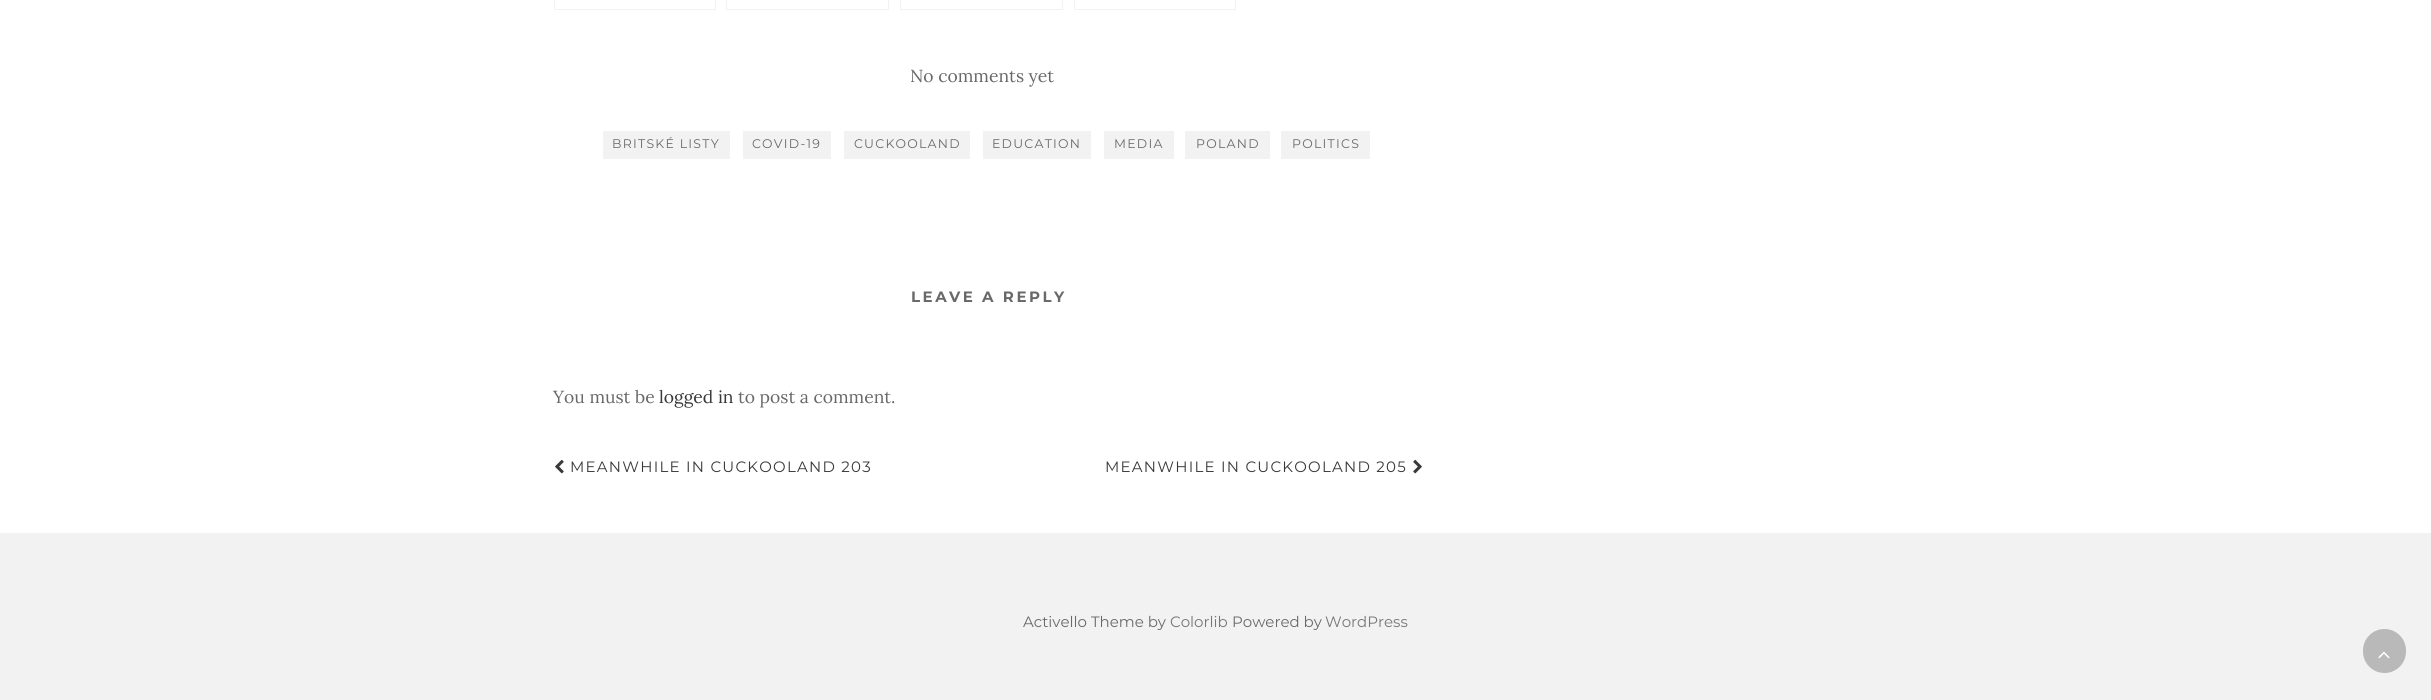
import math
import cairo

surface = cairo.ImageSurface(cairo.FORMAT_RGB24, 2431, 700)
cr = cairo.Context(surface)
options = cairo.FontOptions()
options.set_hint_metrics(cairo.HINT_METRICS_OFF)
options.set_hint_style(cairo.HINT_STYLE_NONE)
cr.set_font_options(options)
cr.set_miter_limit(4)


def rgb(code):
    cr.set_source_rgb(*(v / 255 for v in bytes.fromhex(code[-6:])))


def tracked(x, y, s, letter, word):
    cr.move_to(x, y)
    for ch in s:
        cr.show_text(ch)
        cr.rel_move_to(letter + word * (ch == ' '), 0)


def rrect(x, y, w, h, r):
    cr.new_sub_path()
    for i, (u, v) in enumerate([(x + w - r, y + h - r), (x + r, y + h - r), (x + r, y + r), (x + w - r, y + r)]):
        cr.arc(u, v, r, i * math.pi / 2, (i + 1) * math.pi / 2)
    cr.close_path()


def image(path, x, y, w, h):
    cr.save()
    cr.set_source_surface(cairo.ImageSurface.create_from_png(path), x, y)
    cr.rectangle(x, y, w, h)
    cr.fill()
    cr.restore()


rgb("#ffffff")
cr.paint()
cr.rectangle(554.5, -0.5, 161, 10)
rgb("#f2f2f2")
cr.set_line_width(1)
cr.stroke()
cr.rectangle(726.5, -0.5, 162, 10)
cr.stroke()
cr.rectangle(900.5, -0.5, 162, 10)
cr.stroke()
cr.rectangle(1074.5, -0.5, 161, 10)
cr.stroke()
for x, y, w, h, color in [
    (603, 131, 127, 28, "#f2f2f2"),
    (743, 131, 88, 28, "#f2f2f2"),
    (844, 131, 126, 28, "#f2f2f2"),
    (983, 131, 108, 28, "#f2f2f2"),
    (1104, 131, 70, 28, "#f2f2f2"),
    (1185, 131, 85, 28, "#f2f2f2"),
    (1281, 131, 89, 28, "#f2f2f2"),
]:
    rgb(color)
    cr.rectangle(x, y, w, h)
    cr.fill()
image("img/1.png", 555, 459, 9, 15)
image("img/2.png", 1413, 459, 9, 15)
cr.rectangle(0, 533, 2431, 167)
cr.fill()
rgb("#b9b9b9")
rrect(2363, 629, 43, 44, 21.5)
cr.fill()
image("img/3.png", 2378, 651, 12, 8)
cr.select_font_face("Lora")
cr.set_font_size(17.5)
rgb("#696969")
cr.move_to(910, 82)
cr.show_text("No comments yet")
cr.select_font_face("Montserrat")
cr.set_font_size(12.5)
for x, y, s in [
    (612, 148, "BRITSKÉ LISTY"),
    (752, 148, "COVID-19"),
    (854, 148, "CUCKOOLAND"),
    (992, 148, "EDUCATION"),
    (1114, 148, "MEDIA"),
    (1196, 148, "POLAND"),
    (1292, 148, "POLITICS"),
]:
    tracked(x, y, s, 1.25, 0)
cr.select_font_face("Montserrat", cairo.FONT_SLANT_NORMAL, cairo.FONT_WEIGHT_BOLD)
cr.set_font_size(15)
tracked(911, 302, "LEAVE A REPLY", 2.5, 0)
cr.select_font_face("Lora")
cr.set_font_size(17.5)
cr.move_to(553, 403)
cr.show_text("You must be")
rgb("#393939")
cr.move_to(659, 403)
cr.show_text("logged in")
rgb("#696969")
cr.move_to(738, 403)
cr.show_text("to post a comment.")
cr.select_font_face("Montserrat")
cr.set_font_size(15)
rgb("#393939")
tracked(570, 472, "MEANWHILE IN CUCKOOLAND 203", 1.25, 0)
tracked(1105, 472, "MEANWHILE IN CUCKOOLAND 205", 1.25, 0)
rgb("#696969")
cr.move_to(1023, 627)
cr.show_text("Activello Theme by")
rgb("#777777")
cr.move_to(1170, 627)
cr.show_text("Colorlib")
rgb("#696969")
cr.move_to(1232, 627)
cr.show_text("Powered by")
rgb("#777777")
cr.move_to(1325, 627)
cr.show_text("WordPress")
surface.write_to_png("page.png")
